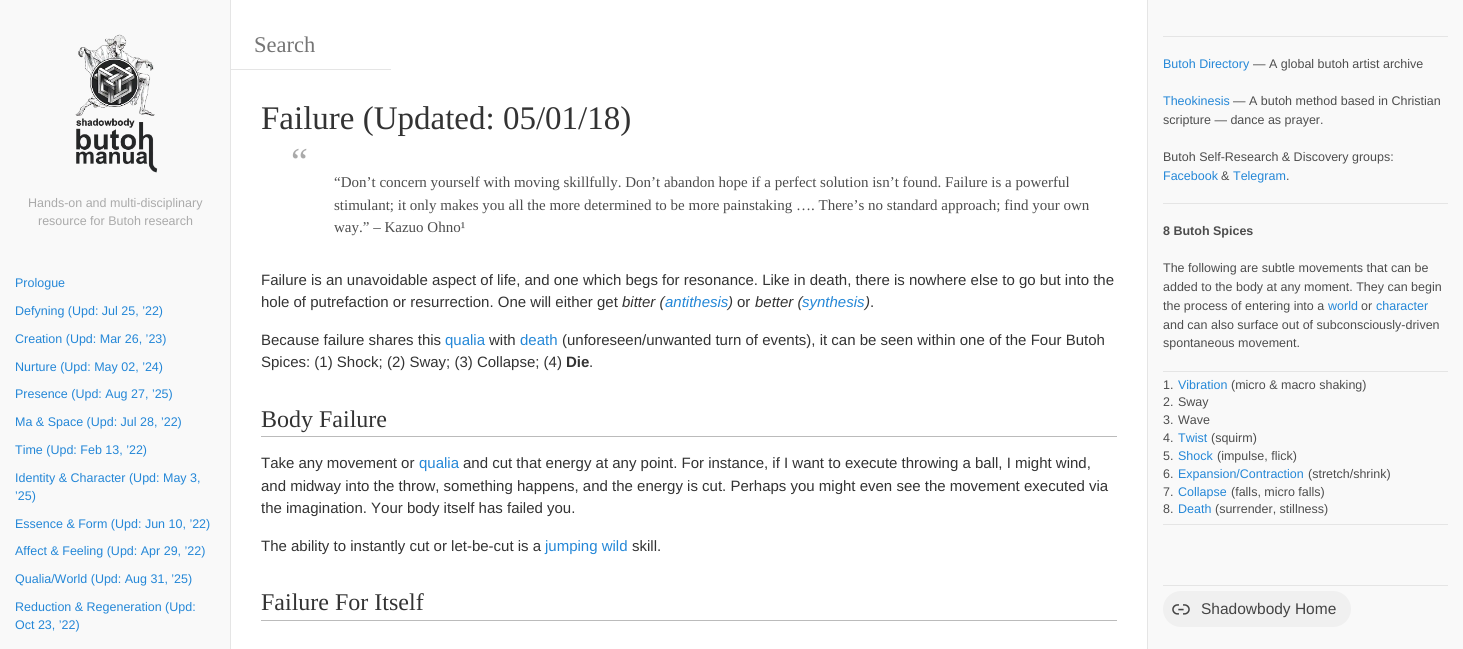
import math
import cairo

surface = cairo.ImageSurface(cairo.FORMAT_RGB24, 1463, 649)
cr = cairo.Context(surface)
options = cairo.FontOptions()
options.set_hint_metrics(cairo.HINT_METRICS_OFF)
options.set_hint_style(cairo.HINT_STYLE_NONE)
cr.set_font_options(options)
cr.set_miter_limit(4)


def rgb(code):
    cr.set_source_rgb(*(v / 255 for v in bytes.fromhex(code[-6:])))


def rrect(x, y, w, h, r):
    cr.new_sub_path()
    for i, (u, v) in enumerate([(x + w - r, y + h - r), (x + r, y + h - r), (x + r, y + r), (x + w - r, y + r)]):
        cr.arc(u, v, r, i * math.pi / 2, (i + 1) * math.pi / 2)
    cr.close_path()


def image(path, x, y, w, h):
    cr.save()
    cr.set_source_surface(cairo.ImageSurface.create_from_png(path), x, y)
    cr.rectangle(x, y, w, h)
    cr.fill()
    cr.restore()


rgb("#f9f9f9")
cr.paint()
for x, y, w, h, color in [
    (231, 0, 916, 649, "#ffffff"),
    (1147, 0, 1, 649, "#e5e5e5"),
    (230, 0, 1, 649, "#e5e5e5"),
    (231, 69, 160, 1, "#e5e5e5"),
    (261, 436, 856, 1, "#bbbbbb"),
    (261, 620, 856, 1, "#bbbbbb"),
    (1163, 36, 285, 1, "#e5e5e5"),
    (1163, 203, 285, 1, "#e5e5e5"),
    (1163, 371, 285, 1, "#e5e5e5"),
    (1163, 524, 285, 1, "#e5e5e5"),
    (1163, 585, 285, 1, "#e5e5e5"),
]:
    rgb(color)
    cr.rectangle(x, y, w, h)
    cr.fill()
rgb("#f0f0f0")
rrect(1163, 591, 188, 36, 18)
cr.fill()
image("img/1.png", 1172, 604, 18, 11)
image("img/2.png", 75, 34, 83, 139)
cr.select_font_face("Liberation Serif")
cr.set_font_size(22.5)
rgb("#757575")
cr.move_to(254, 52)
cr.show_text("Search")
cr.select_font_face("Liberation Sans")
cr.set_font_size(12.5)
rgb("#2487d7")
for x, y, s in [
    (15, 287, "Prologue"),
    (15, 315, "Defyning (Upd: Jul 25, ’22)"),
    (15, 343, "Creation (Upd: Mar 26, ’23)"),
    (15, 371, "Nurture (Upd: May 02, ’24)"),
    (15, 398, "Presence (Upd: Aug 27, ’25)"),
    (15, 426, "Ma & Space (Upd: Jul 28, ’22)"),
    (15, 454, "Time (Upd: Feb 13, ’22)"),
    (15, 482, "Identity & Character (Upd: May 3,"),
    (15, 500, "’25)"),
    (15, 528, "Essence & Form (Upd: Jun 10, ’22)"),
    (15, 555, "Affect & Feeling (Upd: Apr 29, ’22)"),
    (15, 583, "Qualia/World (Upd: Aug 31, ’25)"),
    (15, 611, "Reduction & Regeneration (Upd:"),
    (15, 629, "Oct 23, ’22)"),
]:
    cr.move_to(x, y)
    cr.show_text(s)
cr.select_font_face("Liberation Serif")
cr.set_font_size(33)
rgb("#333333")
cr.move_to(261, 129)
cr.show_text("Failure (Updated: 05/01/18)")
cr.set_font_size(38)
rgb("#aaaaaa")
cr.move_to(291, 174)
cr.show_text("“")
cr.set_font_size(15)
rgb("#4d4d4d")
for x, y, s in [
    (334, 187, "“Don’t concern yourself with moving skillfully. Don’t abandon hope if a perfect solution isn’t found. Failure is a powerful"),
    (334, 210, "stimulant; it only makes you all the more determined to be more painstaking …. There’s no standard approach; find your own"),
    (334, 232, "way.” – Kazuo Ohno¹"),
]:
    cr.move_to(x, y)
    cr.show_text(s)
cr.select_font_face("Liberation Sans")
rgb("#333333")
cr.move_to(261, 285)
cr.show_text("Failure is an unavoidable aspect of life, and one which begs for resonance. Like in death, there is nowhere else to go but into the")
cr.move_to(261, 307)
cr.show_text("hole of putrefaction or resurrection. One will either get")
cr.select_font_face("Liberation Sans", cairo.FONT_SLANT_ITALIC)
cr.move_to(622, 307)
cr.show_text("bitter (")
rgb("#2487d7")
cr.move_to(665, 307)
cr.show_text("antithesis")
rgb("#333333")
cr.move_to(728, 307)
cr.show_text(")")
cr.select_font_face("Liberation Sans")
cr.move_to(737, 307)
cr.show_text("or")
cr.select_font_face("Liberation Sans", cairo.FONT_SLANT_ITALIC)
cr.move_to(755, 307)
cr.show_text("better (")
rgb("#2487d7")
cr.move_to(802, 307)
cr.show_text("synthesis")
rgb("#333333")
cr.move_to(865, 307)
cr.show_text(")")
cr.select_font_face("Liberation Sans")
cr.move_to(870, 307)
cr.show_text(".")
cr.move_to(261, 345)
cr.show_text("Because failure shares this")
rgb("#2487d7")
cr.move_to(445, 345)
cr.show_text("qualia")
rgb("#333333")
cr.move_to(489, 345)
cr.show_text("with")
rgb("#2487d7")
cr.move_to(520, 345)
cr.show_text("death")
rgb("#333333")
cr.move_to(562, 345)
cr.show_text("(unforeseen/unwanted turn of events), it can be seen within one of the Four Butoh")
cr.move_to(261, 367)
cr.show_text("Spices: (1) Shock; (2) Sway; (3) Collapse; (4)")
cr.select_font_face("Liberation Sans", cairo.FONT_SLANT_NORMAL, cairo.FONT_WEIGHT_BOLD)
cr.move_to(566, 367)
cr.show_text("Die")
cr.select_font_face("Liberation Sans")
cr.move_to(589, 367)
cr.show_text(".")
cr.select_font_face("Liberation Serif")
cr.set_font_size(24)
cr.move_to(261, 427)
cr.show_text("Body Failure")
cr.select_font_face("Liberation Sans")
cr.set_font_size(15)
cr.move_to(261, 468)
cr.show_text("Take any movement or")
rgb("#2487d7")
cr.move_to(419, 468)
cr.show_text("qualia")
rgb("#333333")
for x, y, s in [
    (463, 468, "and cut that energy at any point. For instance, if I want to execute throwing a ball, I might wind,"),
    (261, 491, "and midway into the throw, something happens, and the energy is cut. Perhaps you might even see the movement executed via"),
    (261, 513, "the imagination. Your body itself has failed you."),
    (261, 551, "The ability to instantly cut or let-be-cut is a"),
]:
    cr.move_to(x, y)
    cr.show_text(s)
rgb("#2487d7")
cr.move_to(545, 551)
cr.show_text("jumping wild")
rgb("#333333")
cr.move_to(632, 551)
cr.show_text("skill.")
cr.select_font_face("Liberation Serif")
cr.set_font_size(24)
cr.move_to(261, 610)
cr.show_text("Failure For Itself")
cr.select_font_face("Liberation Sans")
cr.set_font_size(12.5)
rgb("#2487d7")
cr.move_to(1163, 68)
cr.show_text("Butoh Directory")
rgb("#4d4d4d")
cr.move_to(1253, 68)
cr.show_text("— A global butoh artist archive")
rgb("#2487d7")
cr.move_to(1163, 105)
cr.show_text("Theokinesis")
rgb("#4d4d4d")
for x, y, s in [
    (1233, 105, "— A butoh method based in Christian"),
    (1163, 124, "scripture — dance as prayer."),
    (1163, 161, "Butoh Self-Research & Discovery groups:"),
]:
    cr.move_to(x, y)
    cr.show_text(s)
rgb("#2487d7")
cr.move_to(1163, 180)
cr.show_text("Facebook")
rgb("#4d4d4d")
cr.move_to(1221, 180)
cr.show_text("&")
rgb("#2487d7")
cr.move_to(1233, 180)
cr.show_text("Telegram")
rgb("#4d4d4d")
cr.move_to(1286, 180)
cr.show_text(".")
cr.select_font_face("Liberation Sans", cairo.FONT_SLANT_NORMAL, cairo.FONT_WEIGHT_BOLD)
cr.move_to(1163, 235)
cr.show_text("8 Butoh Spices")
cr.select_font_face("Liberation Sans")
for x, y, s in [
    (1163, 272, "The following are subtle movements that can be"),
    (1163, 291, "added to the body at any moment. They can begin"),
    (1163, 310, "the process of entering into a"),
]:
    cr.move_to(x, y)
    cr.show_text(s)
rgb("#2487d7")
cr.move_to(1328, 310)
cr.show_text("world")
rgb("#4d4d4d")
cr.move_to(1361, 310)
cr.show_text("or")
rgb("#2487d7")
cr.move_to(1376, 310)
cr.show_text("character")
rgb("#4d4d4d")
for x, y, s in [
    (1163, 329, "and can also surface out of subconsciously-driven"),
    (1163, 347, "spontaneous movement."),
    (1163, 389, "1."),
]:
    cr.move_to(x, y)
    cr.show_text(s)
rgb("#2487d7")
cr.move_to(1178, 389)
cr.show_text("Vibration")
rgb("#4d4d4d")
for x, y, s in [
    (1231, 389, "(micro & macro shaking)"),
    (1163, 406, "2."),
    (1178, 406, "Sway"),
    (1163, 424, "3."),
    (1178, 424, "Wave"),
    (1163, 442, "4."),
]:
    cr.move_to(x, y)
    cr.show_text(s)
rgb("#2487d7")
cr.move_to(1178, 442)
cr.show_text("Twist")
rgb("#4d4d4d")
cr.move_to(1211, 442)
cr.show_text("(squirm)")
cr.move_to(1163, 460)
cr.show_text("5.")
rgb("#2487d7")
cr.move_to(1178, 460)
cr.show_text("Shock")
rgb("#4d4d4d")
cr.move_to(1217, 460)
cr.show_text("(impulse, flick)")
cr.move_to(1163, 478)
cr.show_text("6.")
rgb("#2487d7")
cr.move_to(1178, 478)
cr.show_text("Expansion/Contraction")
rgb("#4d4d4d")
cr.move_to(1308, 478)
cr.show_text("(stretch/shrink)")
cr.move_to(1163, 496)
cr.show_text("7.")
rgb("#2487d7")
cr.move_to(1178, 496)
cr.show_text("Collapse")
rgb("#4d4d4d")
cr.move_to(1231, 496)
cr.show_text("(falls, micro falls)")
cr.move_to(1163, 513)
cr.show_text("8.")
rgb("#2487d7")
cr.move_to(1178, 513)
cr.show_text("Death")
rgb("#4d4d4d")
cr.move_to(1215, 513)
cr.show_text("(surrender, stillness)")
cr.set_font_size(15.5)
rgb("#444444")
cr.move_to(1201, 614)
cr.show_text("Shadowbody Home")
cr.set_font_size(12.5)
rgb("#aaaaaa")
cr.move_to(28, 207)
cr.show_text("Hands-on and multi-disciplinary")
cr.move_to(38, 225)
cr.show_text("resource for Butoh research")
surface.write_to_png("page.png")
